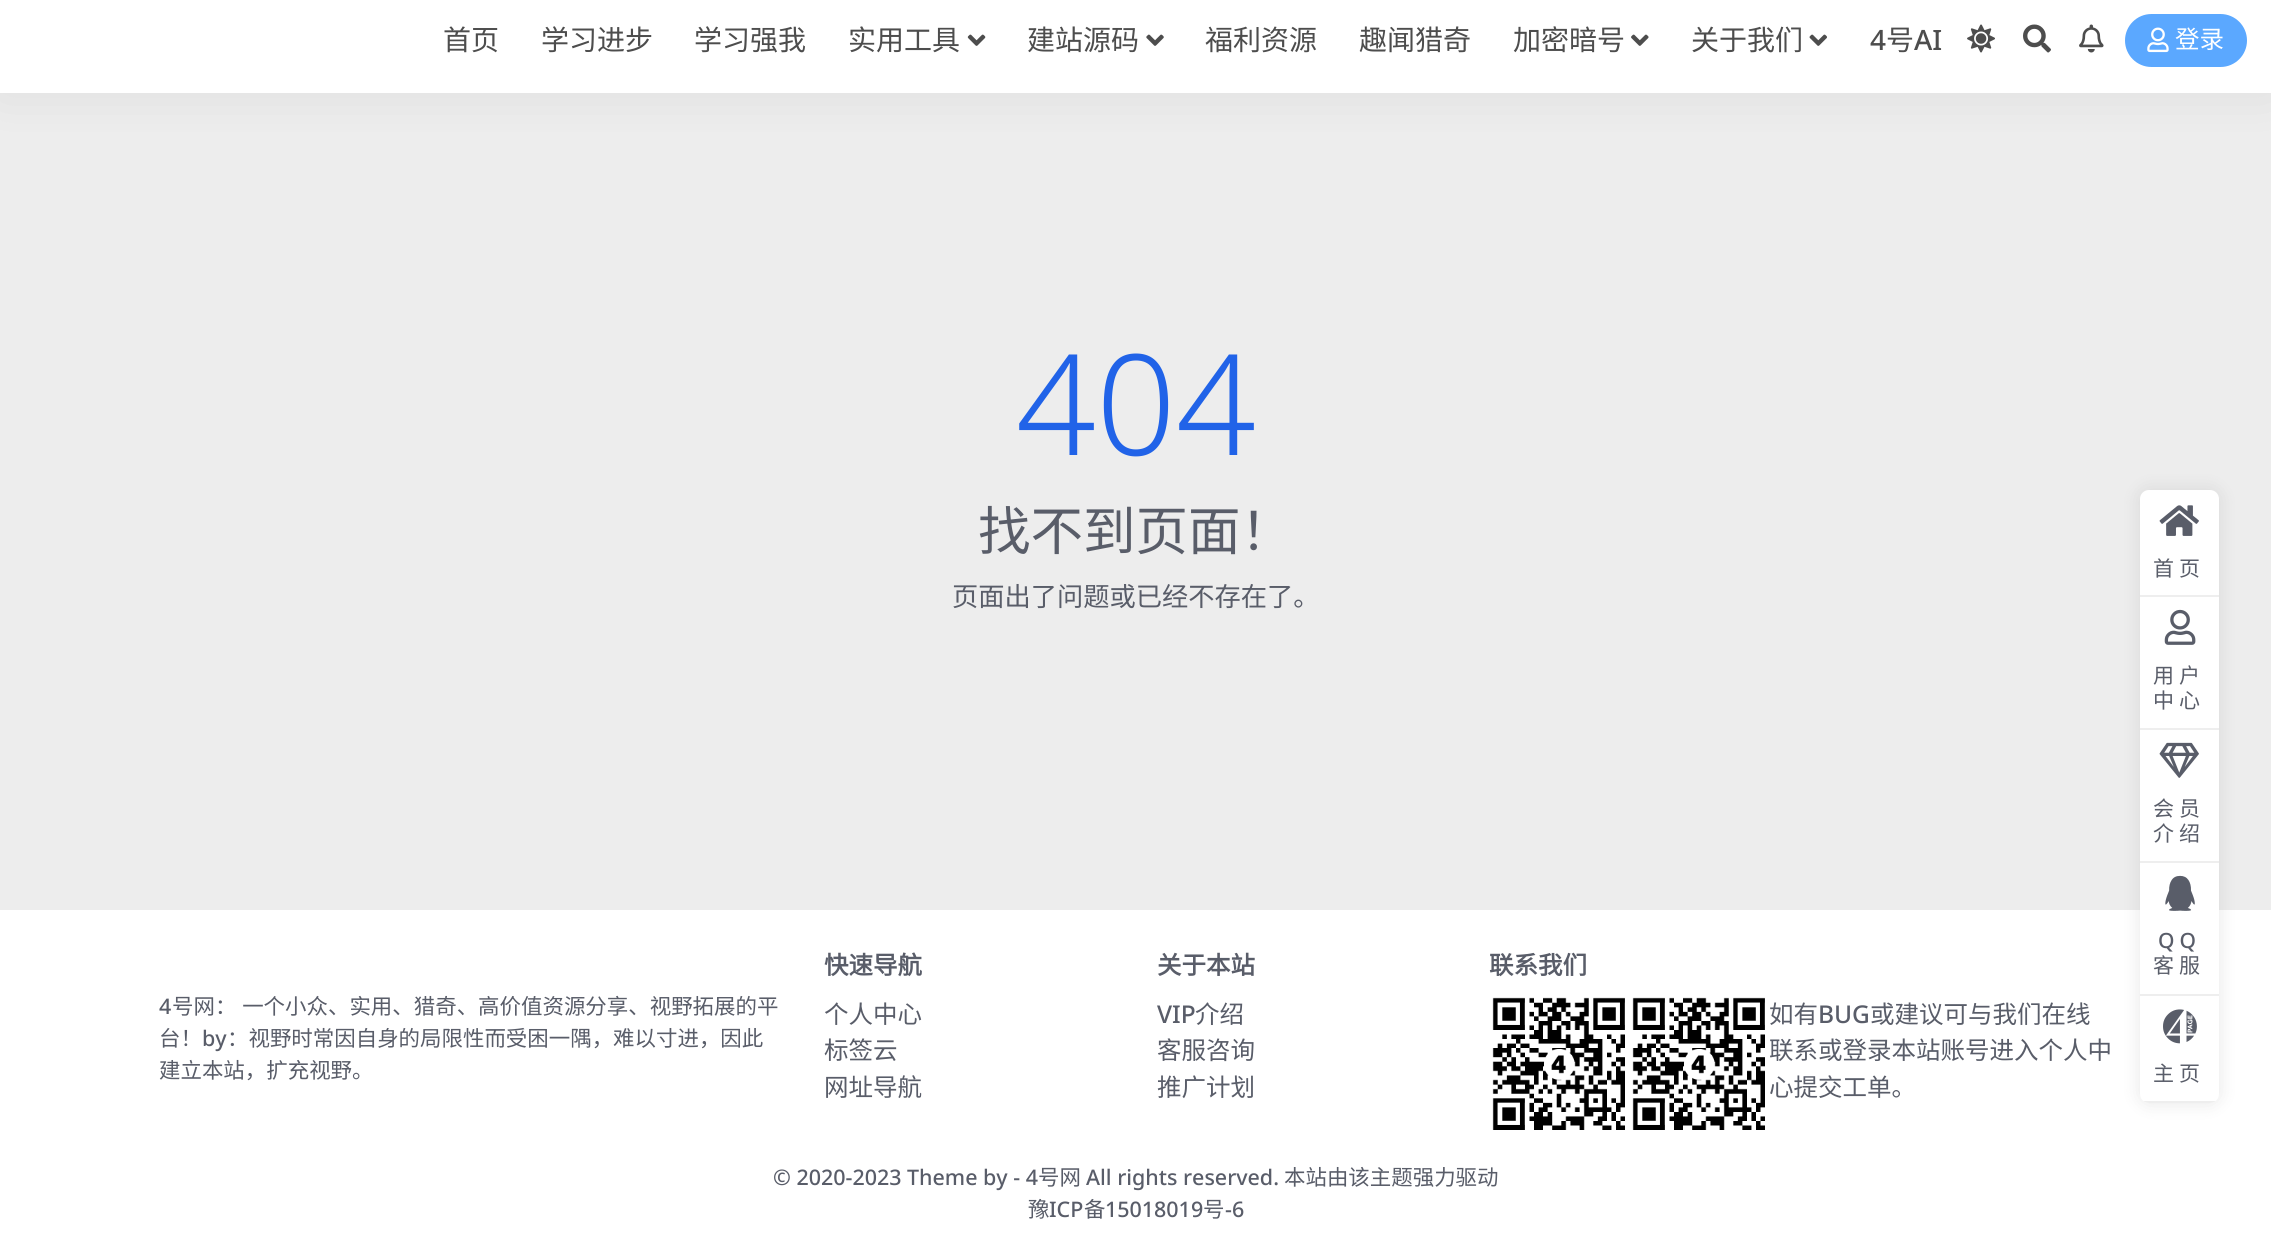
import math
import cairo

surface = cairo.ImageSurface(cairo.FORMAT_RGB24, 2271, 1260)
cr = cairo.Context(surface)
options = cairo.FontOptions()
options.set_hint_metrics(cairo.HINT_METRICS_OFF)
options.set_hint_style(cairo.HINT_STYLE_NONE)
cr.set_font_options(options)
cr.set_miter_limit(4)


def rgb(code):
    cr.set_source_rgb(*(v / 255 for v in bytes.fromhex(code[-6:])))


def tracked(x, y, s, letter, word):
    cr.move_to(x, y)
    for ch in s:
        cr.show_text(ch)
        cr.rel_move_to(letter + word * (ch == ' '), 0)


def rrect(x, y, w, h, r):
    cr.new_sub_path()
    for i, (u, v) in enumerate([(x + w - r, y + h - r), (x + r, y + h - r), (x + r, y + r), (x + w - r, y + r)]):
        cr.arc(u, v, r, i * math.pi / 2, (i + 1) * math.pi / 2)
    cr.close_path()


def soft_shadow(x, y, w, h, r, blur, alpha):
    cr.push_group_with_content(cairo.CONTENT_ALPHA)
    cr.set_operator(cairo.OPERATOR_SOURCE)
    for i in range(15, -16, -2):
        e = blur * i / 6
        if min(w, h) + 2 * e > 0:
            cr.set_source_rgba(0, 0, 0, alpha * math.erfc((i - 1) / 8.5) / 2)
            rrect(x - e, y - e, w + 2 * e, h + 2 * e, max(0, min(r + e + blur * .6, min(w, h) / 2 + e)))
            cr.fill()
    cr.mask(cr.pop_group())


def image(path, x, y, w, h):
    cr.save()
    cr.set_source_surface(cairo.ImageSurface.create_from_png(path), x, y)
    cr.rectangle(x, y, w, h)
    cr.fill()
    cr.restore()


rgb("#ededed")
cr.paint()
rgb("#000000")
soft_shadow(0, -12, 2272, 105, 0, 26, 0.07)
rgb("#ffffff")
cr.rectangle(0, 0, 2271, 93)
cr.fill()
image("img/1.png", 967, 34, 19, 12)
image("img/2.png", 1146, 34, 18, 12)
image("img/3.png", 1631, 34, 18, 12)
image("img/4.png", 1809, 34, 18, 12)
image("img/5.png", 1967, 24, 28, 29)
image("img/6.png", 2023, 24, 28, 29)
image("img/7.png", 2079, 24, 25, 29)
rgb("#5ba8ff")
rrect(2125, 14, 122, 53, 26.5)
cr.fill()
image("img/8.png", 2147, 27, 22, 26)
rgb("#ffffff")
cr.rectangle(0, 910, 2271, 350)
cr.fill()
image("img/9.png", 1492, 997, 133, 133)
image("img/10.png", 1632, 997, 133, 133)
rgb("#000000")
soft_shadow(2140, 490, 79, 613, 9, 9, 0.1)
rgb("#ffffff")
cr.new_path()
cr.move_to(2149, 490)
cr.line_to(2210, 490)
cr.curve_to(2215, 490, 2219, 494, 2219, 499)
cr.line_to(2219, 597)
cr.line_to(2140, 597)
cr.line_to(2140, 499)
cr.curve_to(2140, 494, 2144, 490, 2149, 490)
cr.close_path()
cr.fill()
rgb("#eeeeee")
cr.rectangle(2140, 595, 79, 2)
cr.fill()
image("img/11.png", 2159, 505, 40, 31)
rgb("#ffffff")
cr.rectangle(2140, 597, 79, 131)
cr.fill()
rgb("#eeeeee")
cr.rectangle(2140, 728, 79, 2)
cr.fill()
image("img/12.png", 2164, 609, 32, 36)
rgb("#ffffff")
cr.rectangle(2140, 730, 79, 131)
cr.fill()
rgb("#eeeeee")
cr.rectangle(2140, 861, 79, 2)
cr.fill()
image("img/13.png", 2159, 742, 40, 36)
rgb("#ffffff")
cr.rectangle(2140, 863, 79, 131)
cr.fill()
rgb("#eeeeee")
cr.rectangle(2140, 994, 79, 2)
cr.fill()
image("img/14.png", 2165, 875, 30, 36)
rgb("#ffffff")
cr.new_path()
cr.move_to(2140, 996)
cr.line_to(2219, 996)
cr.line_to(2219, 1094)
cr.curve_to(2219, 1099, 2215, 1103, 2210, 1103)
cr.line_to(2149, 1103)
cr.curve_to(2144, 1103, 2140, 1099, 2140, 1094)
cr.close_path()
cr.fill()
cr.save()
rrect(2140, 490, 79, 613, 9)
cr.clip()
rgb("#eeeeee")
cr.rectangle(2140, 1101, 79, 2)
cr.fill()
cr.restore()
image("img/15.png", 2163, 1009, 34, 35)
cr.select_font_face("Noto Sans CJK SC")
cr.set_font_size(28)
rgb("#4d4d4d")
for x, y, s in [
    (443, 50, "首页"),
    (541, 50, "学习进步"),
    (694, 50, "学习强我"),
    (848, 50, "实用工具"),
    (1027, 50, "建站源码"),
    (1205, 50, "福利资源"),
    (1359, 50, "趣闻猎奇"),
    (1513, 50, "加密暗号"),
    (1691, 50, "关于我们"),
]:
    cr.move_to(x, y)
    cr.show_text(s)
cr.select_font_face("Noto Sans Medium")
cr.move_to(1870, 50)
cr.show_text("4")
cr.select_font_face("Noto Sans CJK SC")
cr.move_to(1886, 50)
cr.show_text("号")
cr.select_font_face("Noto Sans Medium")
cr.move_to(1914, 50)
cr.show_text("AI")
cr.select_font_face("Noto Sans CJK SC")
cr.set_font_size(24.5)
rgb("#ffffff")
cr.move_to(2175, 48)
cr.show_text("登录")
cr.select_font_face("Noto Sans Light")
cr.set_font_size(140)
rgb("#2163e8")
cr.move_to(1016, 455)
cr.show_text("404")
cr.select_font_face("Noto Sans CJK SC")
cr.set_font_size(52.5)
rgb("#595d69")
cr.move_to(978, 550)
cr.show_text("找不到页面！")
cr.set_font_size(26.25)
cr.move_to(952, 606)
cr.show_text("页面出了问题或已经不存在了。")
cr.select_font_face("Noto Sans Medium")
cr.set_font_size(21.45)
cr.move_to(159, 1014)
cr.show_text("4")
cr.select_font_face("Noto Sans CJK SC")
tracked(172, 1014, "号网： 一个小众、实用、猎奇、高价值资源分享、视野拓展的平", 0, 1)
cr.move_to(159, 1046)
cr.show_text("台！")
cr.select_font_face("Noto Sans Medium")
cr.move_to(202, 1046)
cr.show_text("by")
cr.select_font_face("Noto Sans CJK SC")
cr.move_to(227, 1046)
cr.show_text("：视野时常因自身的局限性而受困一隅，难以寸进，因此")
cr.move_to(159, 1078)
cr.show_text("建立本站，扩充视野。")
cr.select_font_face("Noto Sans CJK SC", cairo.FONT_SLANT_NORMAL, cairo.FONT_WEIGHT_BOLD)
cr.set_font_size(24.5)
cr.move_to(824, 974)
cr.show_text("快速导航")
cr.select_font_face("Noto Sans CJK SC")
for x, y, s in [
    (824, 1023, "个人中心"),
    (824, 1059, "标签云"),
    (824, 1096, "网址导航"),
]:
    cr.move_to(x, y)
    cr.show_text(s)
cr.select_font_face("Noto Sans CJK SC", cairo.FONT_SLANT_NORMAL, cairo.FONT_WEIGHT_BOLD)
cr.move_to(1157, 974)
cr.show_text("关于本站")
cr.select_font_face("Noto Sans Medium")
cr.move_to(1157, 1023)
cr.show_text("VIP")
cr.select_font_face("Noto Sans CJK SC")
for x, y, s in [
    (1195, 1023, "介绍"),
    (1157, 1059, "客服咨询"),
    (1157, 1096, "推广计划"),
]:
    cr.move_to(x, y)
    cr.show_text(s)
cr.select_font_face("Noto Sans CJK SC", cairo.FONT_SLANT_NORMAL, cairo.FONT_WEIGHT_BOLD)
cr.move_to(1489, 974)
cr.show_text("联系我们")
cr.select_font_face("Noto Sans CJK SC")
cr.move_to(1769, 1023)
cr.show_text("如有")
cr.select_font_face("Noto Sans Medium")
cr.move_to(1818, 1023)
cr.show_text("BUG")
cr.select_font_face("Noto Sans CJK SC")
for x, y, s in [
    (1870, 1023, "或建议可与我们在线"),
    (1769, 1059, "联系或登录本站账号进入个人中"),
    (1769, 1096, "心提交工单。"),
]:
    cr.move_to(x, y)
    cr.show_text(s)
cr.select_font_face("Noto Sans Medium")
cr.set_font_size(21.45)
cr.move_to(773, 1185)
cr.show_text("© 2020-2023 Theme by - 4")
cr.select_font_face("Noto Sans CJK SC")
cr.move_to(1038, 1185)
cr.show_text("号网")
cr.select_font_face("Noto Sans Medium")
cr.move_to(1086, 1185)
cr.show_text("All rights reserved.")
cr.select_font_face("Noto Sans CJK SC")
cr.move_to(1284, 1185)
cr.show_text("本站由该主题强力驱动")
cr.move_to(1028, 1217)
cr.show_text("豫")
cr.select_font_face("Noto Sans Medium")
cr.move_to(1049, 1217)
cr.show_text("ICP")
cr.select_font_face("Noto Sans CJK SC")
cr.move_to(1084, 1217)
cr.show_text("备")
cr.select_font_face("Noto Sans Medium")
cr.move_to(1105, 1217)
cr.show_text("15018019")
cr.select_font_face("Noto Sans CJK SC")
cr.move_to(1203, 1217)
cr.show_text("号")
cr.select_font_face("Noto Sans Medium")
cr.move_to(1225, 1217)
cr.show_text("-6")
cr.select_font_face("Noto Sans CJK SC")
cr.set_font_size(21)
for x, y, s in [
    (2153, 576, "首页"),
    (2153, 683, "用户"),
    (2153, 708, "中心"),
    (2153, 816, "会员"),
    (2153, 841, "介绍"),
]:
    tracked(x, y, s, 5, 0)
cr.select_font_face("Noto Sans Medium")
tracked(2158, 948, "QQ", 5, 0)
cr.select_font_face("Noto Sans CJK SC")
tracked(2153, 973, "客服", 5, 0)
tracked(2153, 1081, "主页", 5, 0)
surface.write_to_png("page.png")
